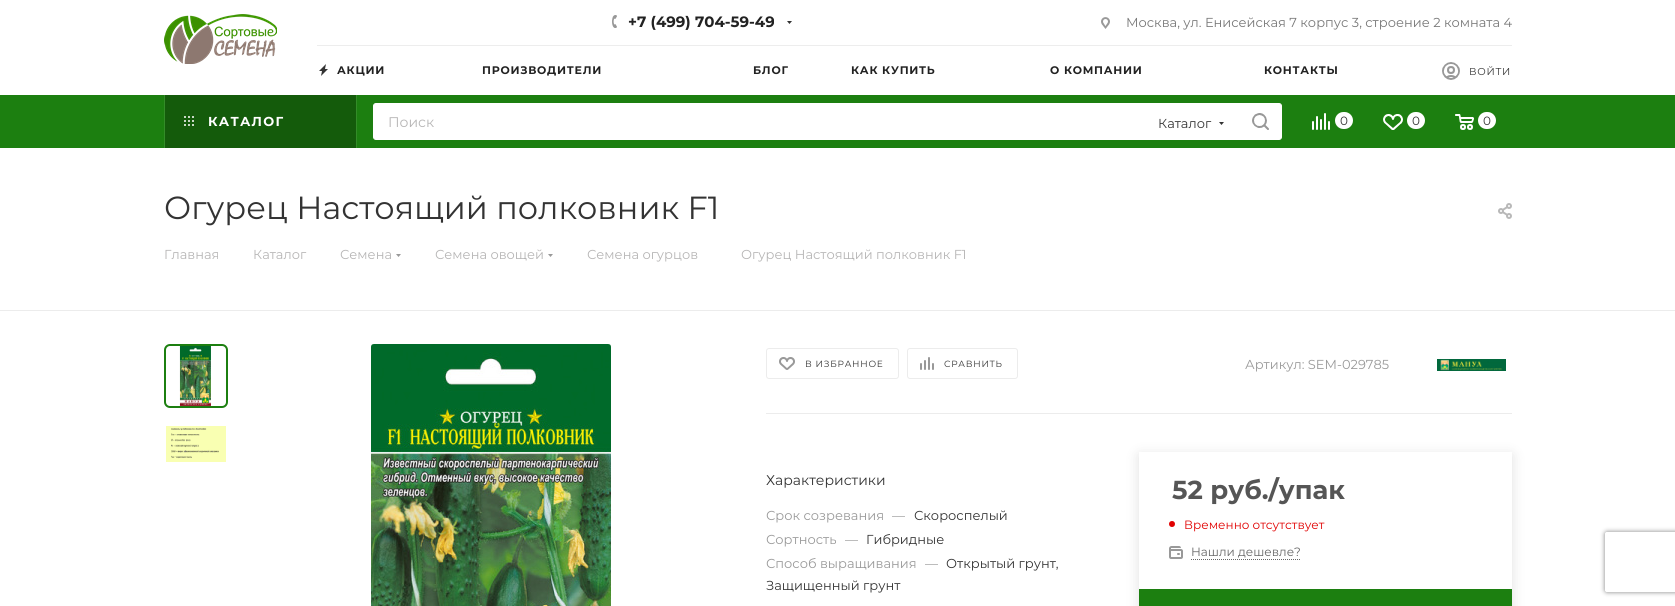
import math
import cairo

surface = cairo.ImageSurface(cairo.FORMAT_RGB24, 1675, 606)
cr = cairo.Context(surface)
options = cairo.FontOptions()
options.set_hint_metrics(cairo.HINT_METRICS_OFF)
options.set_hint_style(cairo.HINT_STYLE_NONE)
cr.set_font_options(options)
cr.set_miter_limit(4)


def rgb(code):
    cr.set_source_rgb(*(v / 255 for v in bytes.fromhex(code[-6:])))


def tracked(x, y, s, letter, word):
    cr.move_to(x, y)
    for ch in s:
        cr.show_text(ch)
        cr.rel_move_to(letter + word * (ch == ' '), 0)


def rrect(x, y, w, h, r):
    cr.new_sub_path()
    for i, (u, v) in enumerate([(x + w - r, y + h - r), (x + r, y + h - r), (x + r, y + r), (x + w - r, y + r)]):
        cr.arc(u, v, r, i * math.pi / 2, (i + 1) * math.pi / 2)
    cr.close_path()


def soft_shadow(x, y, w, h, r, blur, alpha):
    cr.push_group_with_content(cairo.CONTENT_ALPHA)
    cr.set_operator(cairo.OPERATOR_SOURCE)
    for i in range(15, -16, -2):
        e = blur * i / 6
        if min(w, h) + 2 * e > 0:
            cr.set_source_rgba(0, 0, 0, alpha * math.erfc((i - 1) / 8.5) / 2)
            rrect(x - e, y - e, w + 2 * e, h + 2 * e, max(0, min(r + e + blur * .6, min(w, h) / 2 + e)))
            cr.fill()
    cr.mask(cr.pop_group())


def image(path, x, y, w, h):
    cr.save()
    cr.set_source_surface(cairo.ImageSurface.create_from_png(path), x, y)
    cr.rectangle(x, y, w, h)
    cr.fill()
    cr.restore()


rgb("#ffffff")
cr.paint()
image("img/1.png", 164, 14, 113, 50)
image("img/2.png", 612, 15, 5, 13)
image("img/3.png", 787, 21, 5, 3)
image("img/4.png", 1101, 17, 9, 12)
rgb("#ededed")
cr.rectangle(317, 45, 1195, 1)
cr.fill()
image("img/5.png", 319, 64, 9, 12)
image("img/6.png", 1442, 62, 18, 18)
for x, y, w, h, color in [
    (0, 95, 1675, 53, "#1c7f10"),
    (356, 95, 1, 53, "#338c28"),
    (164, 95, 1, 53, "#338c28"),
    (165, 95, 191, 53, "#145b0b"),
]:
    rgb(color)
    cr.rectangle(x, y, w, h)
    cr.fill()
image("img/7.png", 184, 116, 10, 10)
rgb("#ffffff")
rrect(373.5, 103.5, 908, 36, 2.5)
cr.fill_preserve()
cr.set_line_width(1)
cr.stroke()
rgb("#333333")
cr.set_fill_rule(cairo.FILL_RULE_EVEN_ODD)
cr.new_path()
cr.move_to(1219, 122)
cr.line_to(1224, 122)
cr.line_to(1221.5, 125)
cr.close_path()
cr.fill()
image("img/8.png", 1252, 113, 17, 17)
image("img/9.png", 1312, 113, 18, 17)
rgb("#ffffff")
rrect(1335, 112, 18, 17, 8.5)
cr.fill()
image("img/10.png", 1383, 114, 20, 16)
rrect(1407, 112, 18, 17, 8.5)
cr.fill()
image("img/11.png", 1455, 114, 19, 16)
rrect(1478, 112, 18, 17, 8.5)
cr.fill()
image("img/12.png", 1498, 203, 14, 16)
rgb("#999999")
cr.new_path()
cr.move_to(396, 254)
cr.line_to(401, 254)
cr.line_to(398.5, 257)
cr.close_path()
cr.fill()
cr.new_path()
cr.move_to(548, 254)
cr.line_to(553, 254)
cr.line_to(550.5, 257)
cr.close_path()
cr.fill()
rgb("#ececec")
cr.rectangle(0, 310, 1675, 1)
cr.fill()
rrect(165, 345, 62, 62, 5)
rgb("#1c7f10")
cr.set_line_width(2)
cr.stroke()
image("img/13.png", 179, 346, 32, 60)
image("img/14.png", 166, 426, 60, 36)
image("img/15.png", 371, 344, 240, 262)
rgb("#ececec")
cr.rectangle(766, 413, 746, 1)
cr.fill()
rrect(766.5, 348.5, 132, 30, 2.5)
cr.set_line_width(1)
cr.stroke()
image("img/16.png", 779, 357, 16, 13)
rrect(907.5, 348.5, 110, 30, 2.5)
cr.stroke()
image("img/17.png", 920, 357, 14, 13)
image("img/18.png", 1437, 359, 69, 12)
cr.save()
cr.new_path()
cr.move_to(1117, 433)
cr.line_to(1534, 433)
cr.line_to(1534, 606)
cr.line_to(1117, 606)
cr.close_path()
cr.move_to(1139, 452)
cr.line_to(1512, 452)
cr.line_to(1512, 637)
cr.line_to(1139, 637)
cr.close_path()
cr.clip()
rgb("#000000")
soft_shadow(1139, 455, 373, 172, 0, 7, 0.12)
cr.restore()
rgb("#e10000")
cr.arc(1172, 524, 3, 0, 2 * math.pi)
cr.fill()
image("img/19.png", 1169, 546, 14, 13)
cr.new_path()
cr.move_to(1191, 559.5)
cr.line_to(1301, 559.5)
rgb("#666666")
cr.set_dash([1, 1])
cr.stroke()
rgb("#1c7f10")
cr.rectangle(1139, 589, 373, 17)
cr.fill()
cr.save()
cr.new_path()
cr.move_to(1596, 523)
cr.line_to(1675, 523)
cr.line_to(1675, 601)
cr.line_to(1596, 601)
cr.close_path()
cr.move_to(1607, 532)
cr.line_to(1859, 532)
cr.curve_to(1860, 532, 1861, 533, 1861, 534)
cr.line_to(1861, 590)
cr.curve_to(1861, 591, 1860, 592, 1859, 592)
cr.line_to(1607, 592)
cr.curve_to(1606, 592, 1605, 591, 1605, 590)
cr.line_to(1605, 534)
cr.curve_to(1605, 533, 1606, 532, 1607, 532)
cr.close_path()
cr.clip()
rgb("#808080")
soft_shadow(1605, 532, 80, 60, 2, 2.5, 1)
cr.restore()
cr.select_font_face("Montserrat", cairo.FONT_SLANT_NORMAL, cairo.FONT_WEIGHT_BOLD)
cr.set_font_size(15)
rgb("#222222")
cr.move_to(628, 27)
cr.show_text("+7 (499) 704-59-49")
cr.select_font_face("Montserrat")
cr.set_font_size(13)
rgb("#777777")
cr.move_to(1126, 27)
cr.show_text("Москва, ул. Енисейская 7 корпус 3, строение 2 комната 4")
cr.select_font_face("Montserrat", cairo.FONT_SLANT_NORMAL, cairo.FONT_WEIGHT_BOLD)
cr.set_font_size(11)
rgb("#222222")
for x, y, s in [
    (337, 74, "АКЦИИ"),
    (482, 74, "ПРОИЗВОДИТЕЛИ"),
    (753, 74, "БЛОГ"),
    (851, 74, "КАК КУПИТЬ"),
    (1050, 74, "О КОМПАНИИ"),
    (1264, 74, "КОНТАКТЫ"),
]:
    tracked(x, y, s, 0.75, 0)
cr.select_font_face("Montserrat")
cr.set_font_size(10)
rgb("#333333")
tracked(1469, 75, "ВОЙТИ", 0.75, 0)
cr.select_font_face("Montserrat", cairo.FONT_SLANT_NORMAL, cairo.FONT_WEIGHT_BOLD)
cr.set_font_size(13)
rgb("#ffffff")
tracked(208, 126, "КАТАЛОГ", 1.25, 0)
cr.select_font_face("Montserrat")
cr.set_font_size(14)
rgb("#b6b5b5")
cr.move_to(388, 127)
cr.show_text("Поиск")
cr.set_font_size(13)
rgb("#333333")
cr.move_to(1158, 128)
cr.show_text("Каталог")
cr.set_font_size(12)
for x, y, s in [
    (1340, 125, "0"),
    (1412, 125, "0"),
    (1483, 125, "0"),
]:
    cr.move_to(x, y)
    cr.show_text(s)
cr.set_font_size(32)
cr.move_to(164, 219)
cr.show_text("Огурец Настоящий полковник F1")
cr.set_font_size(13)
rgb("#b6b5b5")
for x, y, s in [
    (164, 259, "Главная"),
    (253, 259, "Каталог"),
    (340, 259, "Семена"),
    (435, 259, "Семена овощей"),
    (587, 259, "Семена огурцов"),
    (741, 259, "Огурец Настоящий полковник F1"),
]:
    cr.move_to(x, y)
    cr.show_text(s)
cr.set_font_size(9)
rgb("#333333")
tracked(805, 367, "В ИЗБРАННОЕ", 0.75, 0)
tracked(944, 367, "СРАВНИТЬ", 0.75, 0)
cr.set_font_size(13)
rgb("#999999")
cr.move_to(1245, 369)
cr.show_text("Артикул: SEM-029785")
cr.set_font_size(14)
rgb("#333333")
cr.move_to(766, 485)
cr.show_text("Характеристики")
cr.set_font_size(13)
rgb("#999999")
cr.move_to(766, 520)
cr.show_text("Срок созревания")
cr.move_to(892, 520)
cr.show_text("—")
rgb("#333333")
cr.move_to(914, 520)
cr.show_text("Скороспелый")
rgb("#999999")
cr.move_to(766, 544)
cr.show_text("Сортность")
cr.move_to(845, 544)
cr.show_text("—")
rgb("#333333")
cr.move_to(866, 544)
cr.show_text("Гибридные")
rgb("#999999")
cr.move_to(766, 568)
cr.show_text("Способ выращивания")
cr.move_to(925, 568)
cr.show_text("—")
rgb("#333333")
cr.move_to(946, 568)
cr.show_text("Открытый грунт,")
cr.move_to(766, 590)
cr.show_text("Защищенный грунт")
cr.select_font_face("Montserrat", cairo.FONT_SLANT_NORMAL, cairo.FONT_WEIGHT_BOLD)
cr.set_font_size(26)
rgb("#555555")
cr.move_to(1172, 499)
cr.show_text("52 руб./упак")
cr.select_font_face("Montserrat")
cr.set_font_size(12)
rgb("#e10000")
cr.move_to(1184, 529)
cr.show_text("Временно отсутствует")
rgb("#666666")
cr.move_to(1191, 556)
cr.show_text("Нашли дешевле?")
surface.write_to_png("page.png")
